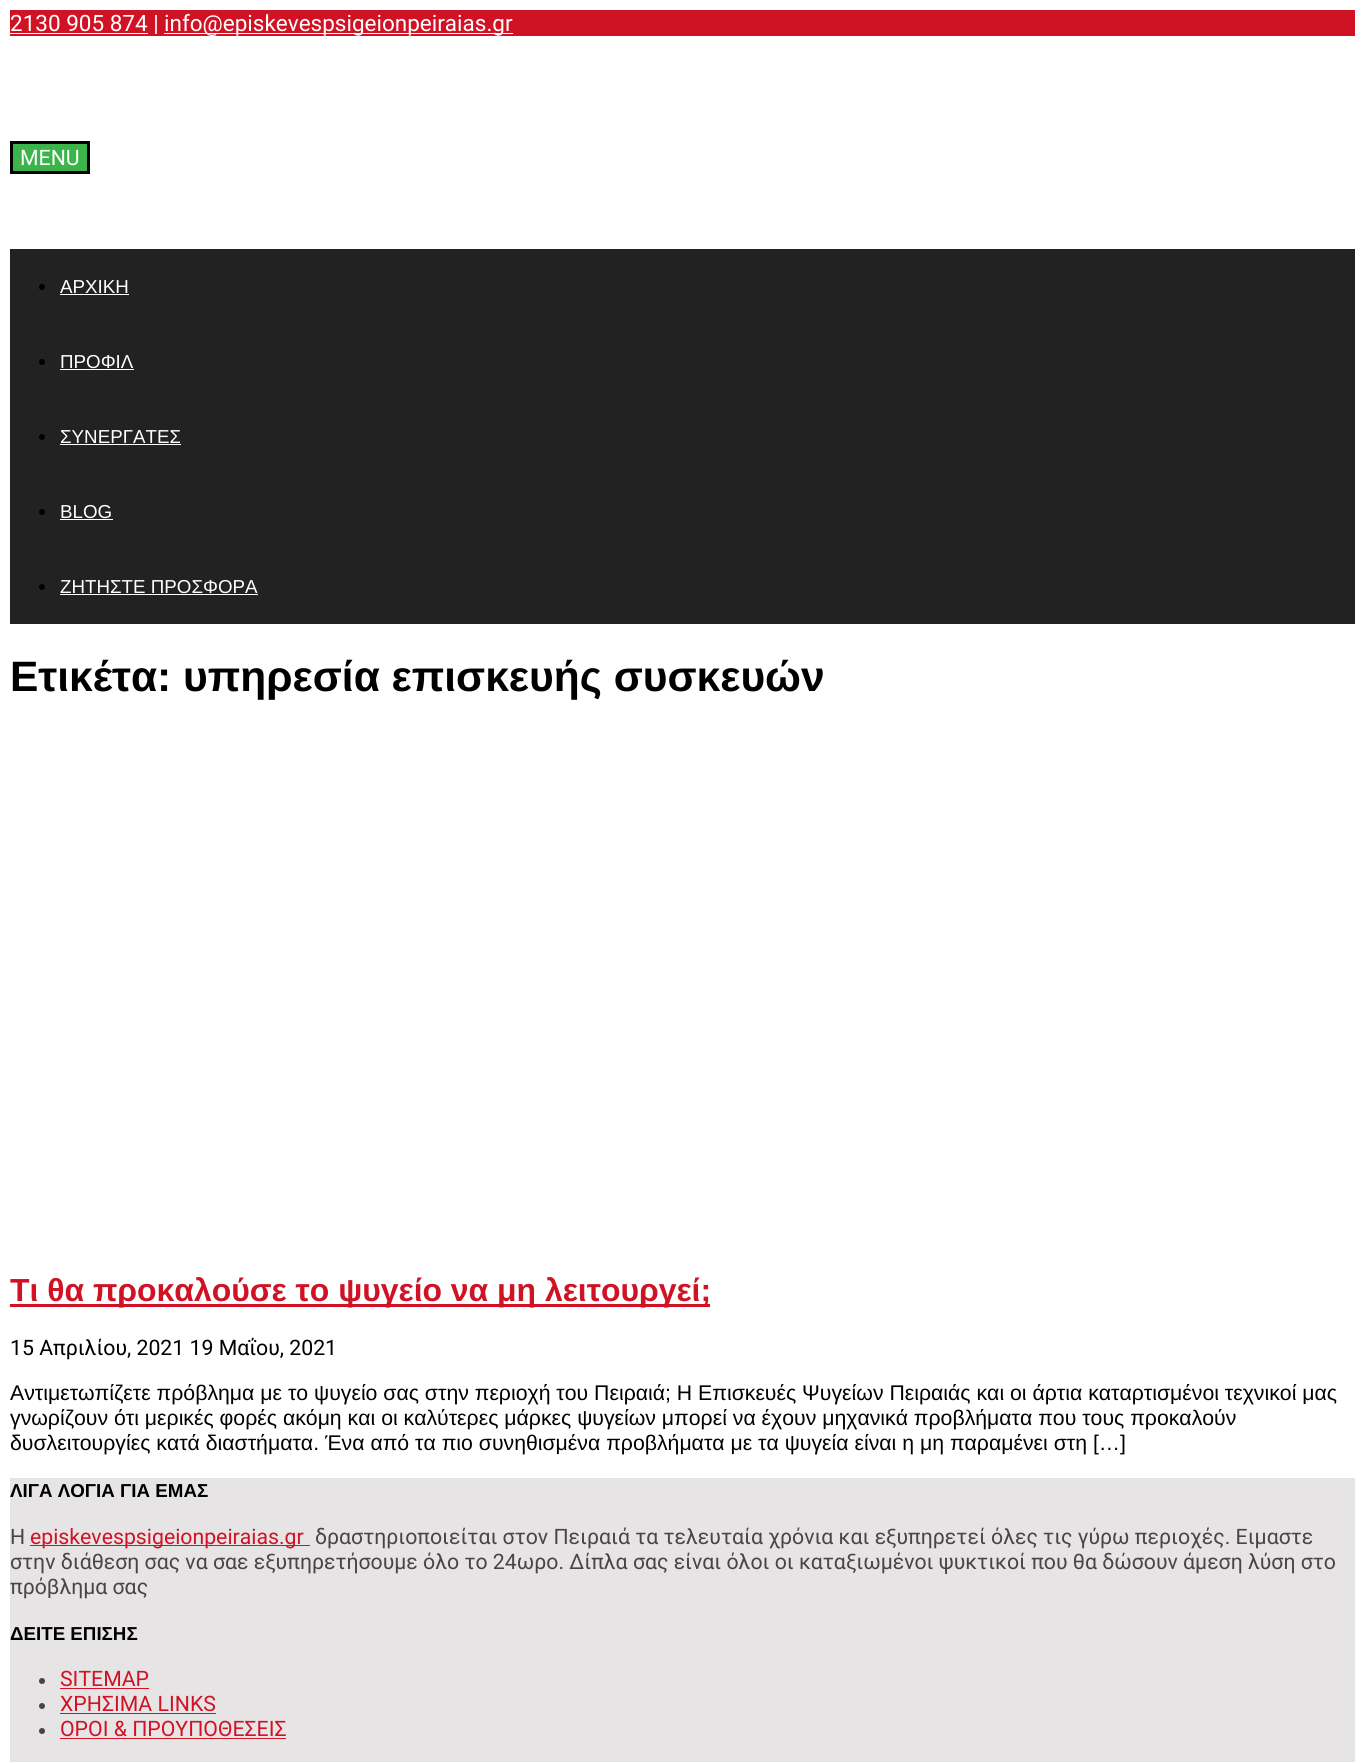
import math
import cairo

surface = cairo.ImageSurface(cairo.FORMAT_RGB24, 1365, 1762)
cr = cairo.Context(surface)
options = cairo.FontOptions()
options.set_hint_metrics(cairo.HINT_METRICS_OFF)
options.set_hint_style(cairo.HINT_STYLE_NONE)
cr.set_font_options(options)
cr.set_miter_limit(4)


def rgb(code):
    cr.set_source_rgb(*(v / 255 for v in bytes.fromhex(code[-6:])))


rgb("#ffffff")
cr.paint()
for x, y, w, h, color in [
    (10, 10, 1345, 26, "#d01225"),
    (10, 33, 138, 1, "#ffffff"),
    (164, 33, 349, 1, "#ffffff"),
]:
    rgb(color)
    cr.rectangle(x, y, w, h)
    cr.fill()
rgb("#3bb54a")
cr.rectangle(11.5, 142.5, 77, 30)
cr.fill_preserve()
rgb("#000000")
cr.set_line_width(3)
cr.stroke()
rgb("#222222")
cr.rectangle(10, 249, 1345, 375)
cr.fill()
rgb("#000000")
cr.arc(42, 287, 3, 0, 2 * math.pi)
cr.fill()
rgb("#ffffff")
cr.rectangle(60, 294, 69, 1)
cr.fill()
rgb("#000000")
cr.arc(42, 362, 3, 0, 2 * math.pi)
cr.fill()
rgb("#ffffff")
cr.rectangle(60, 369, 74, 1)
cr.fill()
rgb("#000000")
cr.arc(42, 437, 3, 0, 2 * math.pi)
cr.fill()
rgb("#ffffff")
cr.rectangle(60, 444, 121, 1)
cr.fill()
rgb("#000000")
cr.arc(42, 512, 3, 0, 2 * math.pi)
cr.fill()
rgb("#ffffff")
cr.rectangle(60, 519, 53, 1)
cr.fill()
rgb("#000000")
cr.arc(42, 587, 3, 0, 2 * math.pi)
cr.fill()
for x, y, w, h, color in [
    (60, 594, 198, 1, "#ffffff"),
    (10, 1304, 700, 3, "#d01225"),
    (10, 1478, 1345, 284, "#e6e4e4"),
    (30, 1545, 280, 1, "#d01225"),
]:
    rgb(color)
    cr.rectangle(x, y, w, h)
    cr.fill()
rgb("#494545")
cr.arc(42, 1681, 3, 0, 2 * math.pi)
cr.fill()
rgb("#d01225")
cr.rectangle(60, 1688, 89, 1)
cr.fill()
rgb("#494545")
cr.arc(42, 1706, 3, 0, 2 * math.pi)
cr.fill()
rgb("#d01225")
cr.rectangle(60, 1713, 156, 1)
cr.fill()
rgb("#494545")
cr.arc(42, 1731, 3, 0, 2 * math.pi)
cr.fill()
rgb("#d01225")
cr.rectangle(60, 1738, 226, 1)
cr.fill()
cr.select_font_face("Roboto")
cr.set_font_size(22.5)
rgb("#ffffff")
cr.move_to(10, 31)
cr.show_text("2130 905 874 |")
cr.move_to(164, 31)
cr.show_text("info@episkevespsigeionpeiraias.gr")
cr.set_font_size(21.25)
cr.move_to(20, 165)
cr.show_text("MENU")
cr.select_font_face("Liberation Sans")
cr.set_font_size(18.75)
for x, y, s in [
    (60, 293, "ΑΡΧΙΚΗ"),
    (60, 368, "ΠΡΟΦΙΛ"),
    (60, 443, "ΣΥΝΕΡΓΑΤΕΣ"),
    (60, 518, "BLOG"),
    (60, 593, "ΖΗΤΗΣΤΕ ΠΡΟΣΦΟΡΑ"),
]:
    cr.move_to(x, y)
    cr.show_text(s)
cr.select_font_face("Liberation Sans", cairo.FONT_SLANT_NORMAL, cairo.FONT_WEIGHT_BOLD)
cr.set_font_size(42.5)
rgb("#000000")
cr.move_to(10, 691)
cr.show_text("Ετικέτα: υπηρεσία επισκευής συσκευών")
cr.set_font_size(31.9)
rgb("#d01225")
cr.move_to(10, 1301)
cr.show_text("Τι θα προκαλούσε το ψυγείο να μη λειτουργεί;")
cr.select_font_face("Roboto")
cr.set_font_size(21.25)
rgb("#000000")
cr.move_to(10, 1355)
cr.show_text("15 Απριλίου, 2021 19 Μαΐου, 2021")
cr.select_font_face("Liberation Sans")
for x, y, s in [
    (10, 1400, "Αντιμετωπίζετε πρόβλημα με το ψυγείο σας στην περιοχή του Πειραιά; Η Επισκευές Ψυγείων Πειραιάς και οι άρτια καταρτισμένοι τεχνικοί μας"),
    (10, 1425, "γνωρίζουν ότι μερικές φορές ακόμη και οι καλύτερες μάρκες ψυγείων μπορεί να έχουν μηχανικά προβλήματα που τους προκαλούν"),
    (10, 1450, "δυσλειτουργίες κατά διαστήματα. Ένα από τα πιο συνηθισμένα προβλήματα με τα ψυγεία είναι η μη παραμένει στη […]"),
]:
    cr.move_to(x, y)
    cr.show_text(s)
cr.select_font_face("Liberation Sans", cairo.FONT_SLANT_NORMAL, cairo.FONT_WEIGHT_BOLD)
cr.set_font_size(18.75)
cr.move_to(10, 1497)
cr.show_text("ΛΙΓΑ ΛΟΓΙΑ ΓΙΑ ΕΜΑΣ")
cr.select_font_face("Roboto")
cr.set_font_size(21.25)
rgb("#494545")
cr.move_to(10, 1544)
cr.show_text("Η")
rgb("#d01225")
cr.move_to(30, 1544)
cr.show_text("episkevespsigeionpeiraias.gr")
rgb("#494545")
for x, y, s in [
    (315, 1544, "δραστηριοποιείται στον Πειραιά τα τελευταία χρόνια και εξυπηρετεί όλες τις γύρω περιοχές. Ειμαστε"),
    (10, 1569, "στην διάθεση σας να σαε εξυπηρετήσουμε όλο το 24ωρο. Δίπλα σας είναι όλοι οι καταξιωμένοι ψυκτικοί που θα δώσουν άμεση λύση στο"),
    (10, 1594, "πρόβλημα σας"),
]:
    cr.move_to(x, y)
    cr.show_text(s)
cr.select_font_face("Liberation Sans", cairo.FONT_SLANT_NORMAL, cairo.FONT_WEIGHT_BOLD)
cr.set_font_size(18.75)
rgb("#000000")
cr.move_to(10, 1640)
cr.show_text("ΔΕΙΤΕ ΕΠΙΣΗΣ")
cr.select_font_face("Roboto")
cr.set_font_size(21.25)
rgb("#d01225")
for x, y, s in [
    (60, 1686, "SITEMAP"),
    (60, 1711, "ΧΡΗΣΙΜΑ LINKS"),
    (60, 1736, "ΟΡΟΙ & ΠΡΟΥΠΟΘΕΣΕΙΣ"),
]:
    cr.move_to(x, y)
    cr.show_text(s)
surface.write_to_png("page.png")
